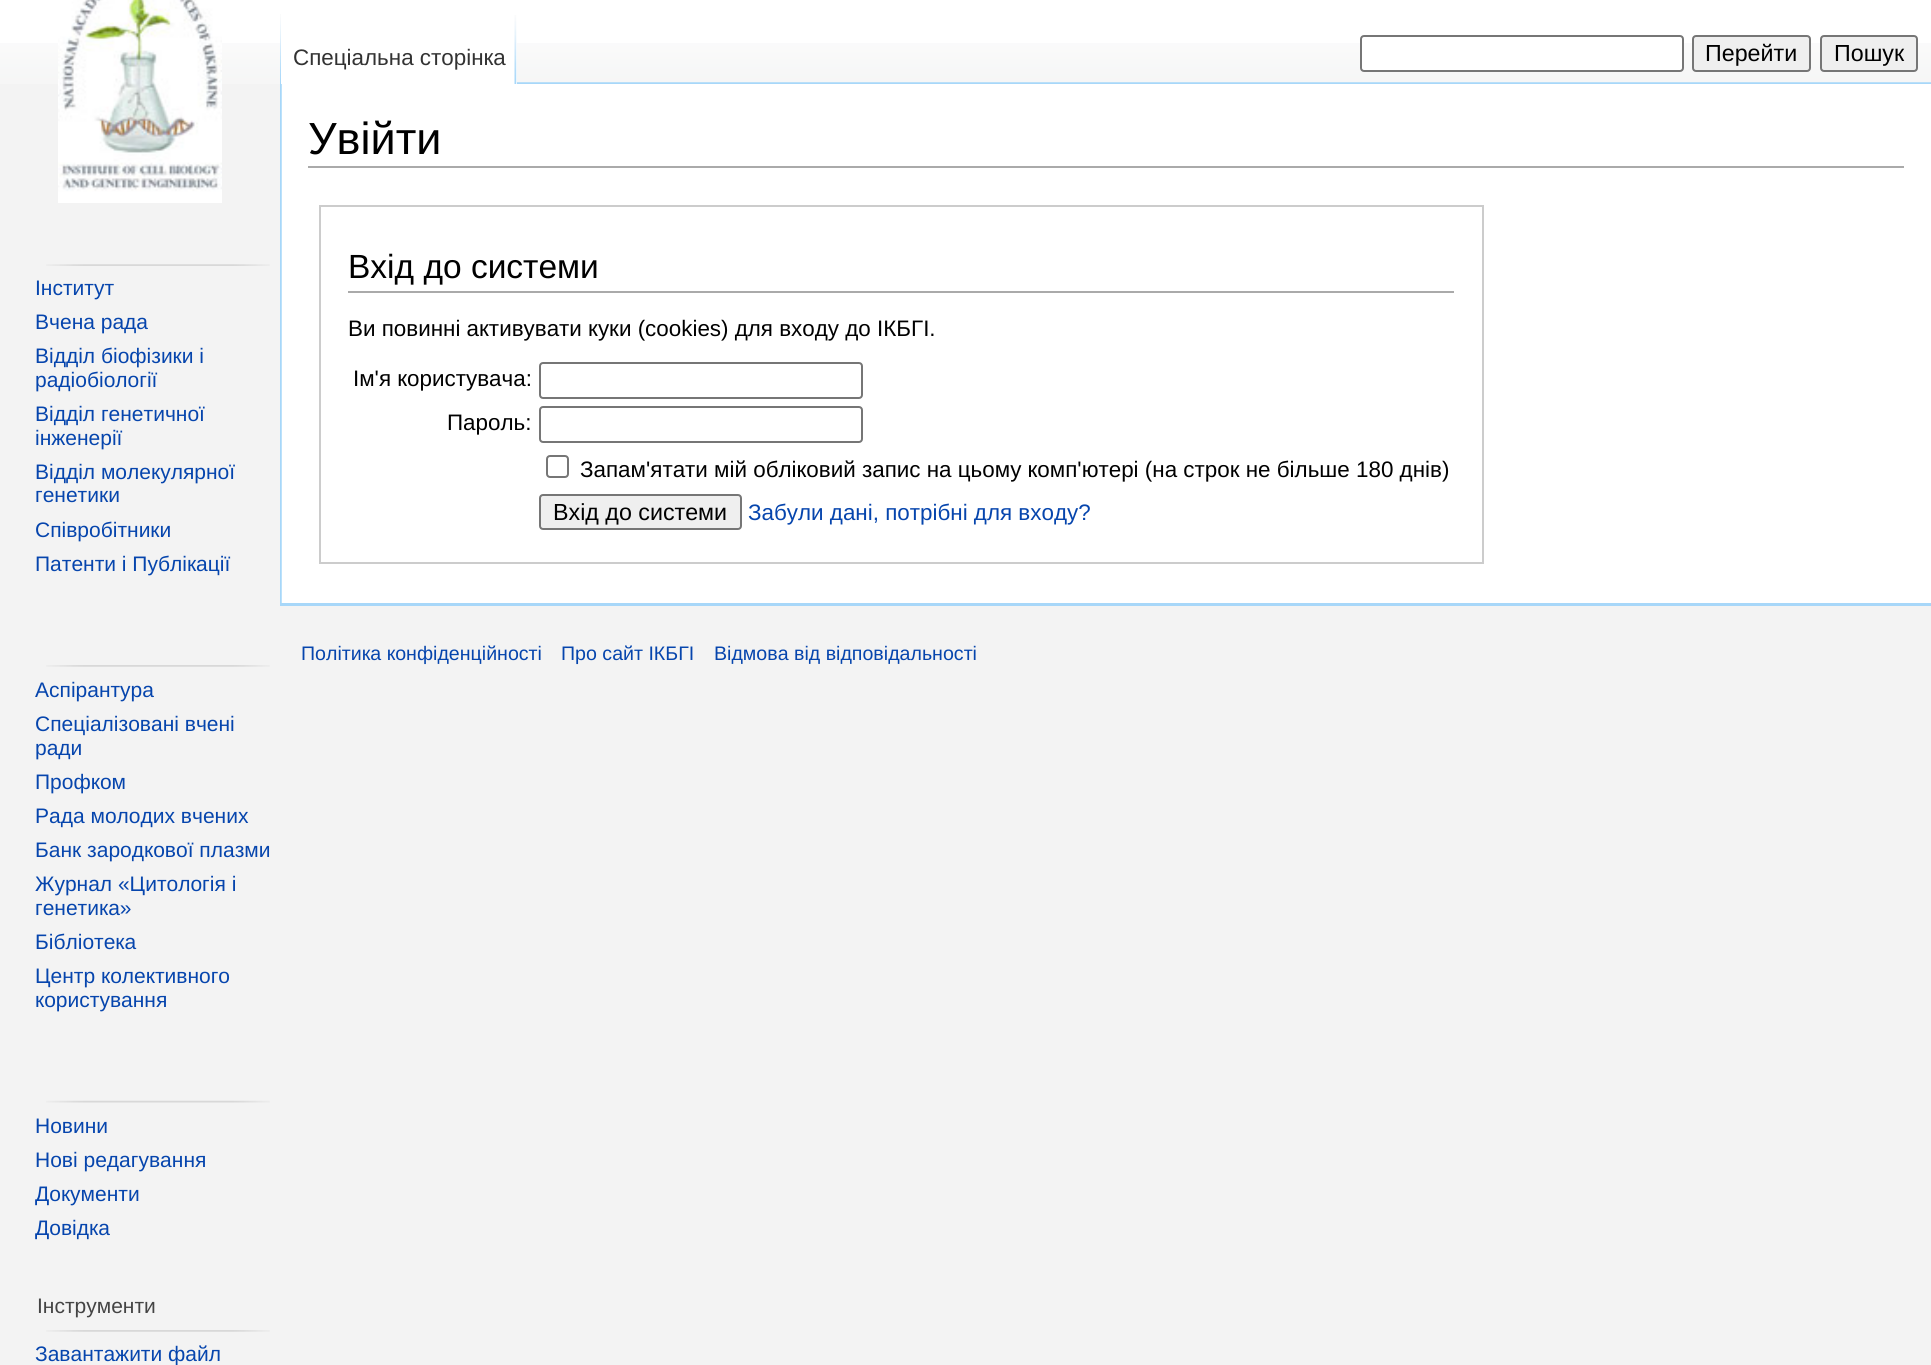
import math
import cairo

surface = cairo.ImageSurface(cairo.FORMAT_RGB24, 1931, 1365)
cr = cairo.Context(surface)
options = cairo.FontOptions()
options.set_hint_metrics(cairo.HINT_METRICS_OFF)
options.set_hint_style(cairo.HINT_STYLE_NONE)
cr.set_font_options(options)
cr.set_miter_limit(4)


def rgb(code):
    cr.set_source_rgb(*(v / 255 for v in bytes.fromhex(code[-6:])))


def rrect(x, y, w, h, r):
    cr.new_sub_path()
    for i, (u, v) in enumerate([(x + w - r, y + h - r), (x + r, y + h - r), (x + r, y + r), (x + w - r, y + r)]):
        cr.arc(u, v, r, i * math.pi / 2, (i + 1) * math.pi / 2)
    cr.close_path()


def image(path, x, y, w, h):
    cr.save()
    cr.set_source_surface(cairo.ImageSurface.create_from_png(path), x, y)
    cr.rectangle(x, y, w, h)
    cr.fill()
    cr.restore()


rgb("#f3f3f3")
cr.paint()
rgb("#ffffff")
cr.rectangle(0, 0, 1931, 43)
cr.fill()
image("img/1.png", 0, 43, 1931, 41)
image("img/4.png", 280, 82, 1651, 2)
image("img/2.png", 280, 14, 1, 69)
cr.rectangle(281, 43, 236, 41)
cr.fill()
image("img/3.png", 514, 15, 3, 69)
rrect(1361, 36, 322, 35, 3)
cr.fill_preserve()
rgb("#767676")
cr.stroke()
rgb("#efefef")
rrect(1693, 36, 117, 35, 3)
cr.fill_preserve()
rgb("#767676")
cr.stroke()
rgb("#efefef")
rrect(1821, 36, 96, 35, 3)
cr.fill_preserve()
rgb("#767676")
cr.stroke()
image("img/5.png", 58, 0, 164, 203)
image("img/6.png", 46, 264, 224, 2)
image("img/7.png", 46, 665, 224, 2)
image("img/8.png", 46, 1100, 224, 3)
image("img/7.png", 46, 1330, 224, 2)
rgb("#ffffff")
cr.rectangle(281, 84, 1650, 519)
cr.fill()
image("img/9.png", 280, 84, 2, 519)
rgb("#aaaaaa")
cr.rectangle(308, 166, 1596, 2)
cr.fill()
cr.rectangle(320, 206, 1163, 357)
rgb("#cccccc")
cr.stroke()
rgb("#aaaaaa")
cr.rectangle(348, 291, 1106, 2)
cr.fill()
rrect(540, 363, 322, 35, 3)
rgb("#767676")
cr.stroke()
rrect(540, 407, 322, 35, 3)
cr.stroke()
rrect(547, 456, 21, 21, 3)
cr.stroke()
rgb("#efefef")
rrect(540, 495, 201, 34, 3)
cr.fill_preserve()
rgb("#767676")
cr.stroke()
rgb("#a7d7f9")
cr.rectangle(280, 603, 1651, 3)
cr.fill()
cr.select_font_face("Liberation Sans")
cr.set_font_size(22.4)
rgb("#333333")
cr.move_to(293, 65)
cr.show_text("Спеціальна сторінка")
cr.set_font_size(23.25)
rgb("#000000")
cr.move_to(1705, 61)
cr.show_text("Перейти")
cr.move_to(1834, 61)
cr.show_text("Пошук")
cr.set_font_size(21)
rgb("#0645ad")
for x, y, s in [
    (35, 295, "Інститут"),
    (35, 329, "Вчена рада"),
    (35, 363, "Відділ біофізики і"),
    (35, 387, "радіобіології"),
    (35, 421, "Відділ генетичної"),
    (35, 445, "інженерії"),
    (35, 479, "Відділ молекулярної"),
    (35, 502, "генетики"),
    (35, 537, "Співробітники"),
    (35, 571, "Патенти і Публікації"),
    (35, 697, "Аспірантура"),
    (35, 731, "Спеціалізовані вчені"),
    (35, 755, "ради"),
    (35, 789, "Профком"),
    (35, 823, "Рада молодих вчених"),
    (35, 857, "Банк зародкової плазми"),
    (35, 891, "Журнал «Цитологія і"),
    (35, 915, "генетика»"),
    (35, 949, "Бібліотека"),
    (35, 983, "Центр колективного"),
    (35, 1007, "користування"),
    (35, 1133, "Новини"),
    (35, 1167, "Нові редагування"),
    (35, 1201, "Документи"),
    (35, 1235, "Довідка"),
]:
    cr.move_to(x, y)
    cr.show_text(s)
rgb("#444444")
cr.move_to(37, 1313)
cr.show_text("Інструменти")
rgb("#0645ad")
cr.move_to(35, 1361)
cr.show_text("Завантажити файл")
cr.set_font_size(45)
rgb("#000000")
cr.move_to(308, 154)
cr.show_text("Увійти")
cr.set_font_size(33.5)
cr.move_to(348, 278)
cr.show_text("Вхід до системи")
cr.set_font_size(22.4)
for x, y, s in [
    (348, 336, "Ви повинні активувати куки (cookies) для входу до ІКБГІ."),
    (353, 386, "Ім'я користувача:"),
    (447, 430, "Пароль:"),
    (580, 477, "Запам'ятати мій обліковий запис на цьому комп'ютері (на строк не більше 180 днів)"),
]:
    cr.move_to(x, y)
    cr.show_text(s)
cr.set_font_size(23.25)
cr.move_to(553, 520)
cr.show_text("Вхід до системи")
cr.set_font_size(22.4)
rgb("#0645ad")
cr.move_to(748, 520)
cr.show_text("Забули дані, потрібні для входу?")
cr.set_font_size(19.6)
for x, y, s in [
    (301, 660, "Політика конфіденційності"),
    (561, 660, "Про сайт ІКБГІ"),
    (714, 660, "Відмова від відповідальності"),
]:
    cr.move_to(x, y)
    cr.show_text(s)
surface.write_to_png("page.png")
